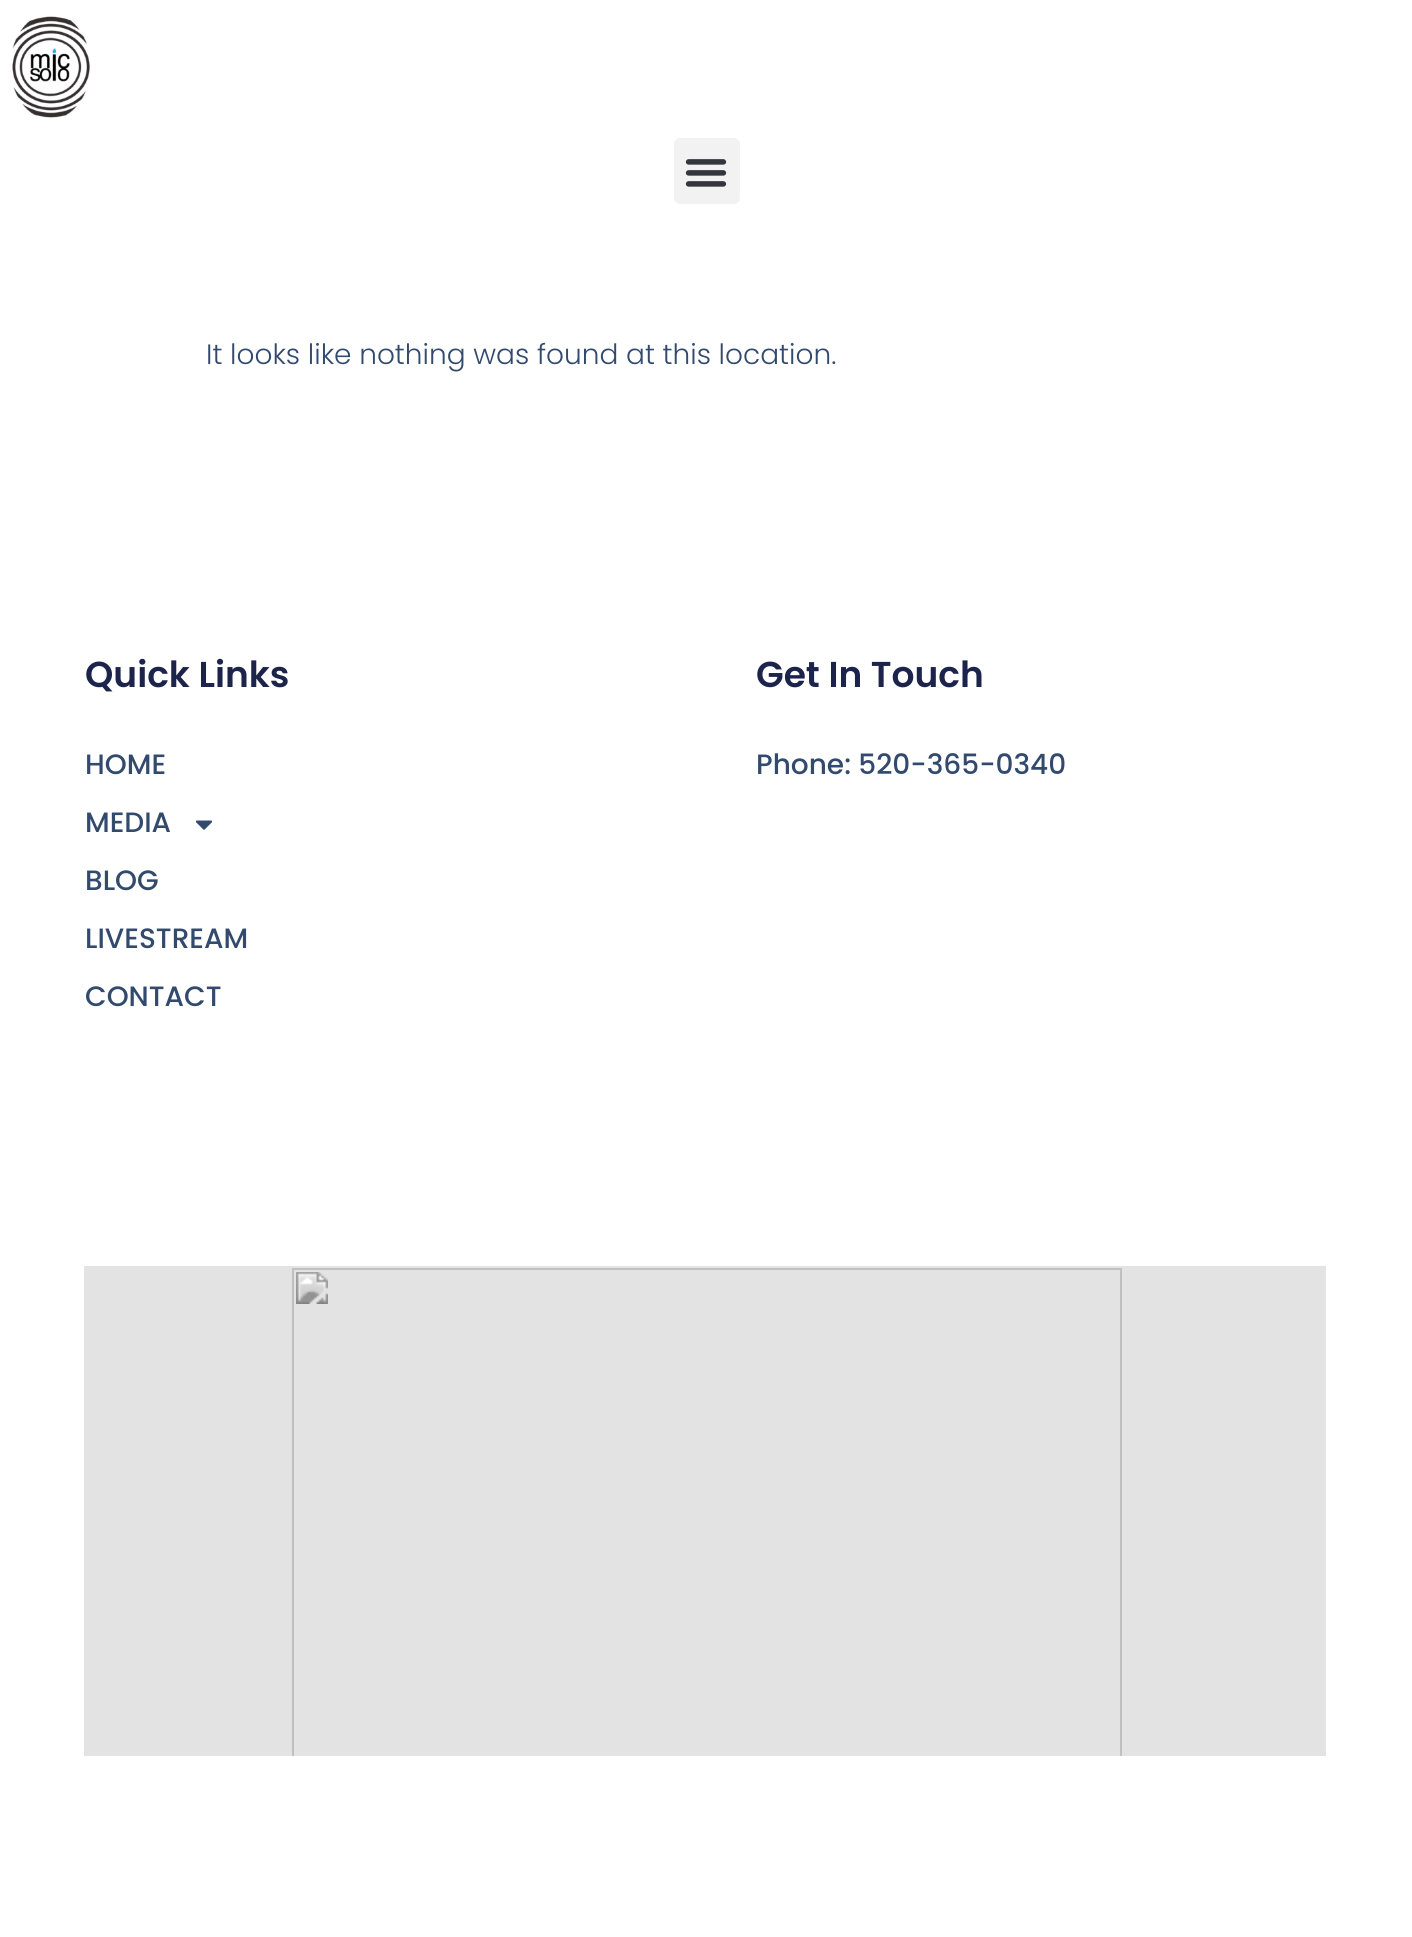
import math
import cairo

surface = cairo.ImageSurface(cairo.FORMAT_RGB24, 1412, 1937)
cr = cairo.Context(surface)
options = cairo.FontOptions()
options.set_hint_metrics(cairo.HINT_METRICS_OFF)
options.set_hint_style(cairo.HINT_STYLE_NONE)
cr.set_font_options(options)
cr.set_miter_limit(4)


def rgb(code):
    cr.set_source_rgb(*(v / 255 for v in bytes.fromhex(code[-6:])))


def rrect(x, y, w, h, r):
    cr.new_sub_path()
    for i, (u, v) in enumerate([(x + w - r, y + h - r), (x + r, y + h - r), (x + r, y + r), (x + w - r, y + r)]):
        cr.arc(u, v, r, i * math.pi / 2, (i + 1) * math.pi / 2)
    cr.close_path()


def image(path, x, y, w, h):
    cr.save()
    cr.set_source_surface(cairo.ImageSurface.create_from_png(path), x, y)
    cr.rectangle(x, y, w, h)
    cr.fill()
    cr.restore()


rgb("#ffffff")
cr.paint()
image("img/1.png", 12, 16, 78, 102)
rgb("#f2f2f2")
rrect(674, 138, 66, 66, 6)
cr.fill()
image("img/2.png", 685, 159, 42, 28)
image("img/3.png", 195, 820, 18, 10)
image("img/4.png", 84, 1266, 1242, 490)
cr.select_font_face("Poppins Light")
cr.set_font_size(28)
rgb("#324a6d")
cr.move_to(206, 364)
cr.show_text("It looks like nothing was found at this location.")
cr.select_font_face("Poppins SemiBold")
cr.set_font_size(36)
rgb("#1c244b")
cr.move_to(85, 687)
cr.show_text("Quick Links")
cr.select_font_face("Poppins Medium")
cr.set_font_size(28)
rgb("#324a6d")
for x, y, s in [
    (85, 774, "HOME"),
    (85, 832, "MEDIA"),
    (85, 890, "BLOG"),
    (85, 948, "LIVESTREAM"),
    (85, 1006, "CONTACT"),
]:
    cr.move_to(x, y)
    cr.show_text(s)
cr.select_font_face("Poppins SemiBold")
cr.set_font_size(36)
rgb("#1c244b")
cr.move_to(756, 687)
cr.show_text("Get In Touch")
cr.select_font_face("Poppins Medium")
cr.set_font_size(28)
rgb("#324a6d")
cr.move_to(756, 774)
cr.show_text("Phone: 520-365-0340")
surface.write_to_png("page.png")
